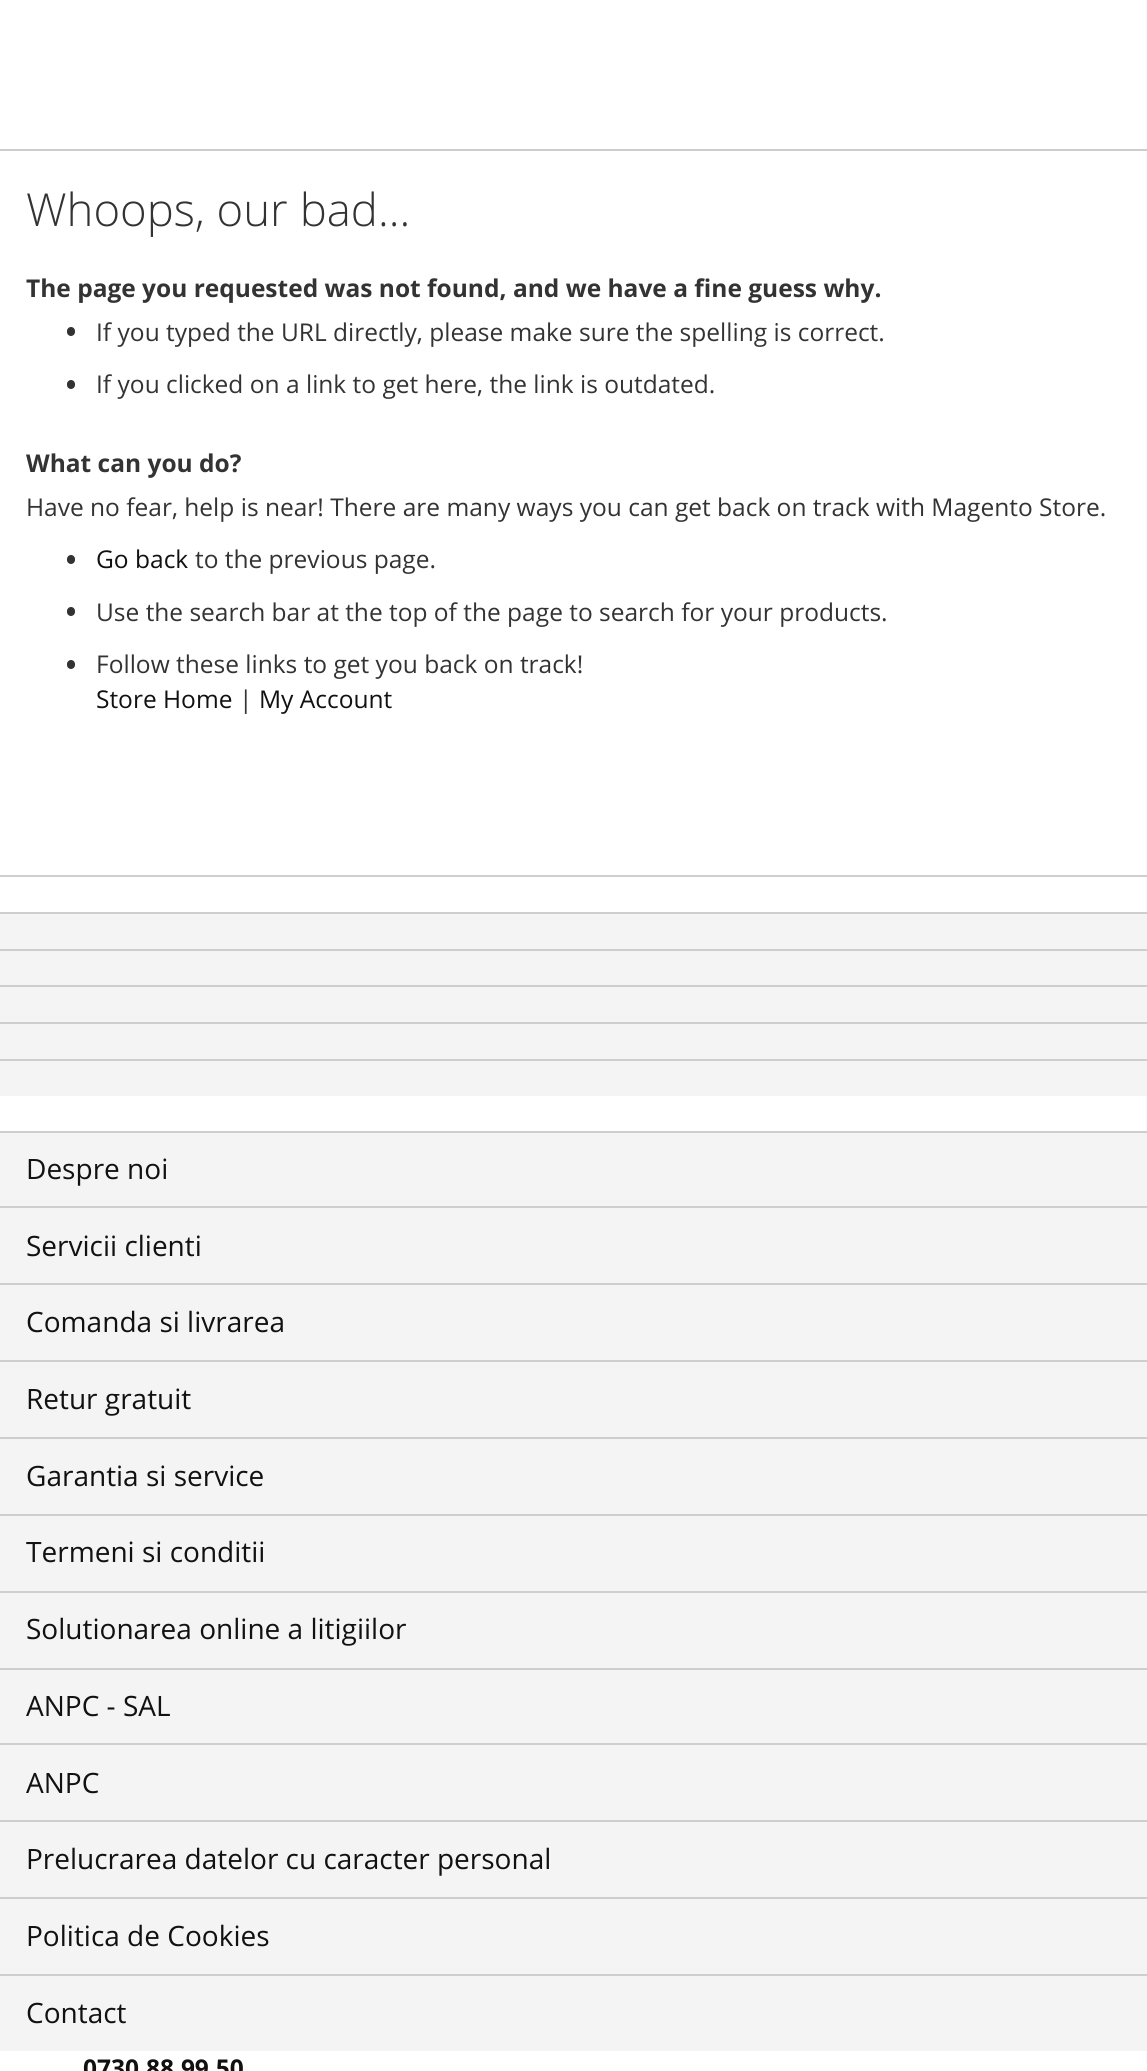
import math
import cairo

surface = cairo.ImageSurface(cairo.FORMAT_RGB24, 1147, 2071)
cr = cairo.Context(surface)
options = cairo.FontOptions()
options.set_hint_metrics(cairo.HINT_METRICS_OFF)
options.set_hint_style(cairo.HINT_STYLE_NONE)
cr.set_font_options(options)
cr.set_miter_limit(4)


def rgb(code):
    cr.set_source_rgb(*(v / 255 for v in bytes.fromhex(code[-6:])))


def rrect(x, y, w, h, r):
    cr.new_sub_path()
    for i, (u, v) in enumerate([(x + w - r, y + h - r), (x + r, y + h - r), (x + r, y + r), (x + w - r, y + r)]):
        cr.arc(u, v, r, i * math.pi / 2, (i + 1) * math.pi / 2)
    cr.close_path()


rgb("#ffffff")
cr.paint()
rgb("#cccccc")
cr.rectangle(0, 149, 1147, 2)
cr.fill()
rgb("#333333")
rrect(67, 327, 8, 9, 4)
cr.fill()
rrect(67, 380, 8, 9, 4)
cr.fill()
rrect(67, 555, 8, 9, 4)
cr.fill()
rrect(67, 607, 8, 9, 4)
cr.fill()
rrect(67, 660, 8, 9, 4)
cr.fill()
for x, y, w, h, color in [
    (0, 875, 1147, 2, "#cecece"),
    (0, 914, 1147, 35, "#f4f4f4"),
    (0, 912, 1147, 2, "#cecece"),
    (0, 951, 1147, 34, "#f4f4f4"),
    (0, 949, 1147, 2, "#cecece"),
    (0, 987, 1147, 35, "#f4f4f4"),
    (0, 985, 1147, 2, "#cecece"),
    (0, 1024, 1147, 35, "#f4f4f4"),
    (0, 1022, 1147, 2, "#cecece"),
    (0, 1061, 1147, 35, "#f4f4f4"),
    (0, 1059, 1147, 2, "#cecece"),
    (0, 1133, 1147, 73, "#f4f4f4"),
    (0, 1131, 1147, 2, "#cecece"),
    (0, 1208, 1147, 75, "#f4f4f4"),
    (0, 1206, 1147, 2, "#cecece"),
    (0, 1285, 1147, 75, "#f4f4f4"),
    (0, 1283, 1147, 2, "#cecece"),
    (0, 1362, 1147, 75, "#f4f4f4"),
    (0, 1360, 1147, 2, "#cecece"),
    (0, 1439, 1147, 75, "#f4f4f4"),
    (0, 1437, 1147, 2, "#cecece"),
    (0, 1516, 1147, 75, "#f4f4f4"),
    (0, 1514, 1147, 2, "#cecece"),
    (0, 1593, 1147, 75, "#f4f4f4"),
    (0, 1591, 1147, 2, "#cecece"),
    (0, 1670, 1147, 73, "#f4f4f4"),
    (0, 1668, 1147, 2, "#cecece"),
    (0, 1745, 1147, 75, "#f4f4f4"),
    (0, 1743, 1147, 2, "#cecece"),
    (0, 1822, 1147, 75, "#f4f4f4"),
    (0, 1820, 1147, 2, "#cecece"),
    (0, 1899, 1147, 75, "#f4f4f4"),
    (0, 1897, 1147, 2, "#cecece"),
    (0, 1976, 1147, 75, "#f4f4f4"),
    (0, 1974, 1147, 2, "#cecece"),
]:
    rgb(color)
    cr.rectangle(x, y, w, h)
    cr.fill()
cr.select_font_face("Open Sans Light")
cr.set_font_size(45.5)
rgb("#333333")
cr.move_to(26, 226)
cr.show_text("Whoops, our bad...")
cr.select_font_face("Open Sans", cairo.FONT_SLANT_NORMAL, cairo.FONT_WEIGHT_BOLD)
cr.set_font_size(24.5)
cr.move_to(26, 297)
cr.show_text("The page you requested was not found, and we have a fine guess why.")
cr.select_font_face("Open Sans")
cr.move_to(96, 341)
cr.show_text("If you typed the URL directly, please make sure the spelling is correct.")
cr.move_to(96, 393)
cr.show_text("If you clicked on a link to get here, the link is outdated.")
cr.select_font_face("Open Sans", cairo.FONT_SLANT_NORMAL, cairo.FONT_WEIGHT_BOLD)
cr.move_to(26, 472)
cr.show_text("What can you do?")
cr.select_font_face("Open Sans")
cr.move_to(26, 516)
cr.show_text("Have no fear, help is near! There are many ways you can get back on track with Magento Store.")
rgb("#111111")
cr.move_to(96, 568)
cr.show_text("Go back")
rgb("#333333")
for x, y, s in [
    (195, 568, "to the previous page."),
    (96, 621, "Use the search bar at the top of the page to search for your products."),
    (96, 673, "Follow these links to get you back on track!"),
]:
    cr.move_to(x, y)
    cr.show_text(s)
rgb("#111111")
cr.move_to(96, 708)
cr.show_text("Store Home")
rgb("#333333")
cr.move_to(239, 708)
cr.show_text("|")
rgb("#111111")
cr.move_to(259, 708)
cr.show_text("My Account")
cr.set_font_size(28)
for x, y, s in [
    (26, 1179, "Despre noi"),
    (26, 1256, "Servicii clienti"),
    (26, 1332, "Comanda si livrarea"),
    (26, 1409, "Retur gratuit"),
    (26, 1486, "Garantia si service"),
    (26, 1562, "Termeni si conditii"),
    (26, 1639, "Solutionarea online a litigiilor"),
    (26, 1716, "ANPC - SAL"),
    (26, 1793, "ANPC"),
    (26, 1869, "Prelucrarea datelor cu caracter personal"),
    (26, 1946, "Politica de Cookies"),
    (26, 2023, "Contact"),
]:
    cr.move_to(x, y)
    cr.show_text(s)
cr.select_font_face("Open Sans", cairo.FONT_SLANT_NORMAL, cairo.FONT_WEIGHT_BOLD)
cr.set_font_size(24.5)
cr.move_to(83, 2077)
cr.show_text("0730.88.99.50")
surface.write_to_png("page.png")
